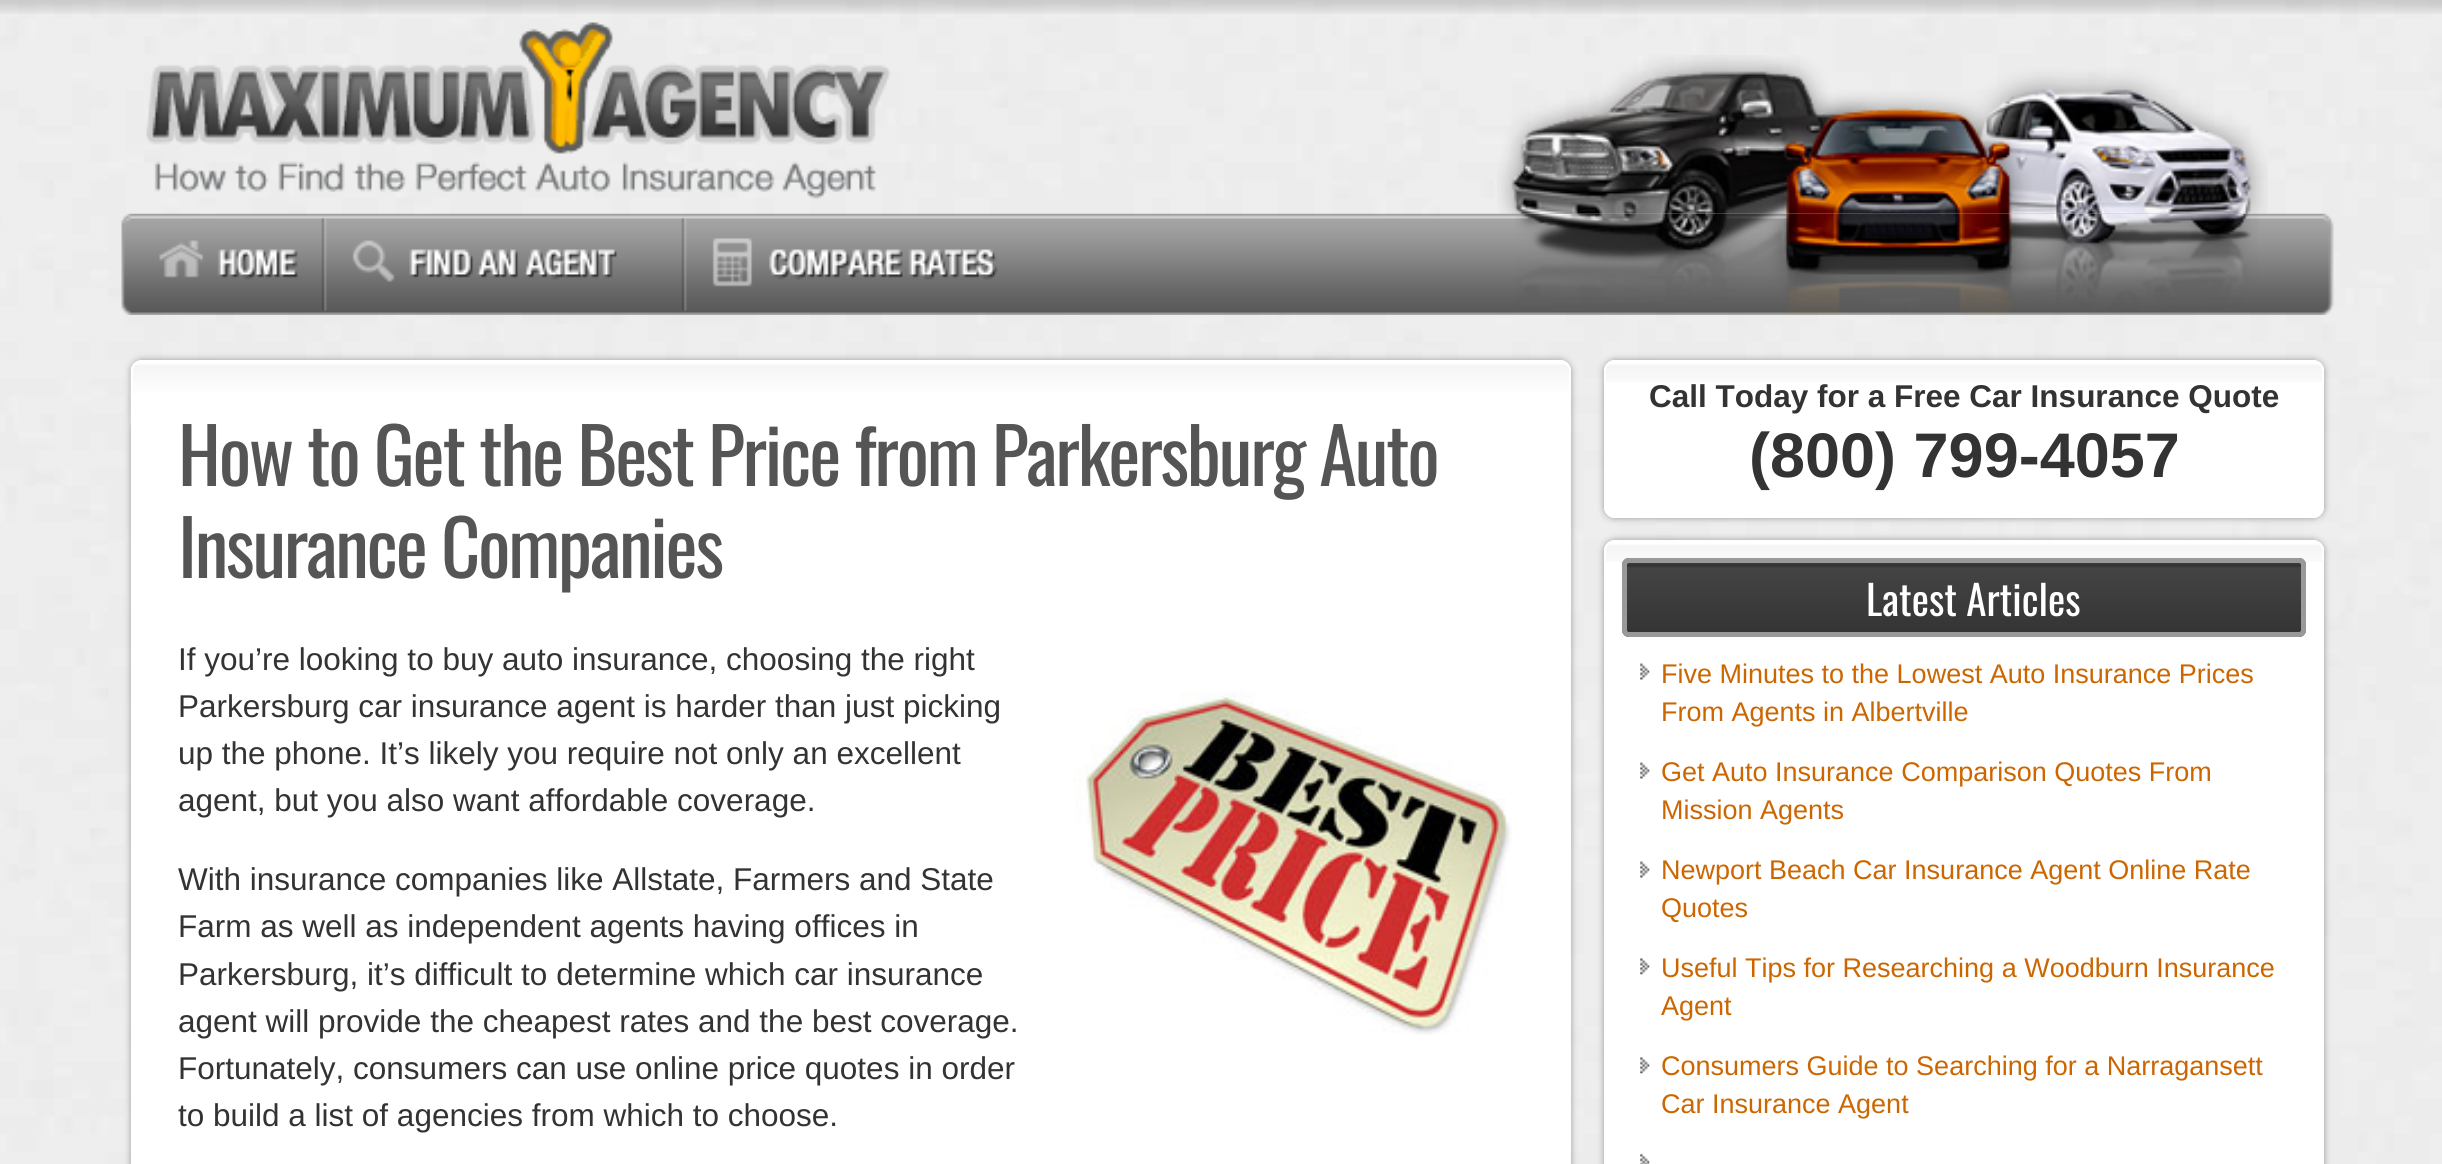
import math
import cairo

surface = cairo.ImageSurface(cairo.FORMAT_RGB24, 2442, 1164)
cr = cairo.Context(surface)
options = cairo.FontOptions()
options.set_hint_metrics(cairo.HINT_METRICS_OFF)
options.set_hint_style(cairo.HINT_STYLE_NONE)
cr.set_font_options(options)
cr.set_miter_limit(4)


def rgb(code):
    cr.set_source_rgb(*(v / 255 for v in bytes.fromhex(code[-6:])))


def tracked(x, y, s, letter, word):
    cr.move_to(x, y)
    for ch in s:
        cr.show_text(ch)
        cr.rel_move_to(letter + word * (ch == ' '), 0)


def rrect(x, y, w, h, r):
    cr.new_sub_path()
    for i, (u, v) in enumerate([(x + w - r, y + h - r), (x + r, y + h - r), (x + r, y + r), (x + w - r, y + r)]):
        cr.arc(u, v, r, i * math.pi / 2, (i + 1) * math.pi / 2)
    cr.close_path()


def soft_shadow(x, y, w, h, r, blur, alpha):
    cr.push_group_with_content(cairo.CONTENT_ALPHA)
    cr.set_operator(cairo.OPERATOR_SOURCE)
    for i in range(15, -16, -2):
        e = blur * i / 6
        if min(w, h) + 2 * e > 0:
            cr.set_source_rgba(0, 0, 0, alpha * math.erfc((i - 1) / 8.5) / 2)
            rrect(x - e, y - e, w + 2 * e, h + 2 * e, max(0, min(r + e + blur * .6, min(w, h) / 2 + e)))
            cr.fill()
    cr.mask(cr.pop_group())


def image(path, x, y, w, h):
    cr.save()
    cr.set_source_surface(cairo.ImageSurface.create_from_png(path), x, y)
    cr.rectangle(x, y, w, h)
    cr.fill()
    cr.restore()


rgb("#ffffff")
cr.paint()
image("img/1.png", 0, 0, 2442, 1164)
image("img/2.png", 0, 0, 2442, 14)
image("img/3.png", 1497, 55, 771, 159)
image("img/4.png", 146, 22, 745, 177)
image("img/5.png", 121, 213, 2213, 102)
image("img/6.png", 159, 240, 139, 40)
image("img/7.png", 321, 217, 296, 94)
image("img/8.png", 681, 217, 317, 94)
image("img/9.png", 1515, 213, 744, 102)
rgb("#999999")
soft_shadow(131, 360, 1440, 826, 11, 3.5, 1)
rgb("#ffffff")
rrect(131, 360, 1440, 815, 11)
cr.fill()
image("img/10.png", 130, 362, 1440, 63)
rrect(132, 361, 1438, 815, 10)
cr.stroke()
image("img/11.png", 1073, 691, 439, 344)
rgb("#999999")
soft_shadow(1604, 360, 720, 158, 11, 3.5, 1)
rgb("#ffffff")
rrect(1604, 360, 720, 158, 11)
cr.fill()
image("img/12.png", 1604, 362, 720, 20)
rrect(1605, 361, 718, 156, 10)
cr.stroke()
rgb("#999999")
soft_shadow(1604, 540, 720, 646, 11, 3.5, 1)
rgb("#ffffff")
rrect(1604, 540, 720, 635, 11)
cr.fill()
image("img/13.png", 1604, 542, 720, 20)
rrect(1605, 541, 718, 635, 10)
cr.stroke()
rgb("#444444")
rrect(1622, 558, 684, 79, 7)
cr.fill()
image("img/14.png", 1627, 563, 675, 74)
rrect(1624.5, 560.5, 679, 74, 4.5)
rgb("#999999")
cr.set_line_width(5)
cr.stroke()
image("img/15.png", 1640, 663, 10, 17)
image("img/15.png", 1640, 762, 10, 17)
image("img/15.png", 1640, 861, 10, 17)
image("img/16.png", 1640, 958, 10, 17)
image("img/16.png", 1640, 1057, 10, 17)
image("img/17.png", 1640, 1153, 10, 11)
cr.select_font_face("Oswald")
cr.set_font_size(76.5)
rgb("#555555")
tracked(178, 486, "How to Get the Best Price from Parkersburg Auto", -2.25, 0)
tracked(178, 578, "Insurance Companies", -2.25, 0)
cr.select_font_face("Liberation Sans")
cr.set_font_size(31.5)
rgb("#333333")
for x, y, s in [
    (178, 670, "If you’re looking to buy auto insurance, choosing the right"),
    (178, 717, "Parkersburg car insurance agent is harder than just picking"),
    (178, 764, "up the phone. It’s likely you require not only an excellent"),
    (178, 811, "agent, but you also want affordable coverage."),
    (178, 890, "With insurance companies like Allstate, Farmers and State"),
    (178, 937, "Farm as well as independent agents having offices in"),
    (178, 985, "Parkersburg, it’s difficult to determine which car insurance"),
    (178, 1032, "agent will provide the cheapest rates and the best coverage."),
    (178, 1079, "Fortunately, consumers can use online price quotes in order"),
    (178, 1126, "to build a list of agencies from which to choose."),
]:
    cr.move_to(x, y)
    cr.show_text(s)
cr.select_font_face("Liberation Sans", cairo.FONT_SLANT_NORMAL, cairo.FONT_WEIGHT_BOLD)
cr.move_to(1649, 407)
cr.show_text("Call Today for a Free Car Insurance Quote")
cr.set_font_size(63)
cr.move_to(1749, 477)
cr.show_text("(800) 799-4057")
cr.select_font_face("Oswald")
cr.set_font_size(41)
rgb("#ffffff")
cr.move_to(1866, 616)
cr.show_text("Latest Articles")
cr.select_font_face("Liberation Sans")
cr.set_font_size(27)
rgb("#cc6600")
for x, y, s in [
    (1661, 683, "Five Minutes to the Lowest Auto Insurance Prices"),
    (1661, 721, "From Agents in Albertville"),
    (1661, 781, "Get Auto Insurance Comparison Quotes From"),
    (1661, 819, "Mission Agents"),
    (1661, 879, "Newport Beach Car Insurance Agent Online Rate"),
    (1661, 917, "Quotes"),
    (1661, 977, "Useful Tips for Researching a Woodburn Insurance"),
    (1661, 1015, "Agent"),
    (1661, 1075, "Consumers Guide to Searching for a Narragansett"),
    (1661, 1113, "Car Insurance Agent"),
]:
    cr.move_to(x, y)
    cr.show_text(s)
surface.write_to_png("page.png")
